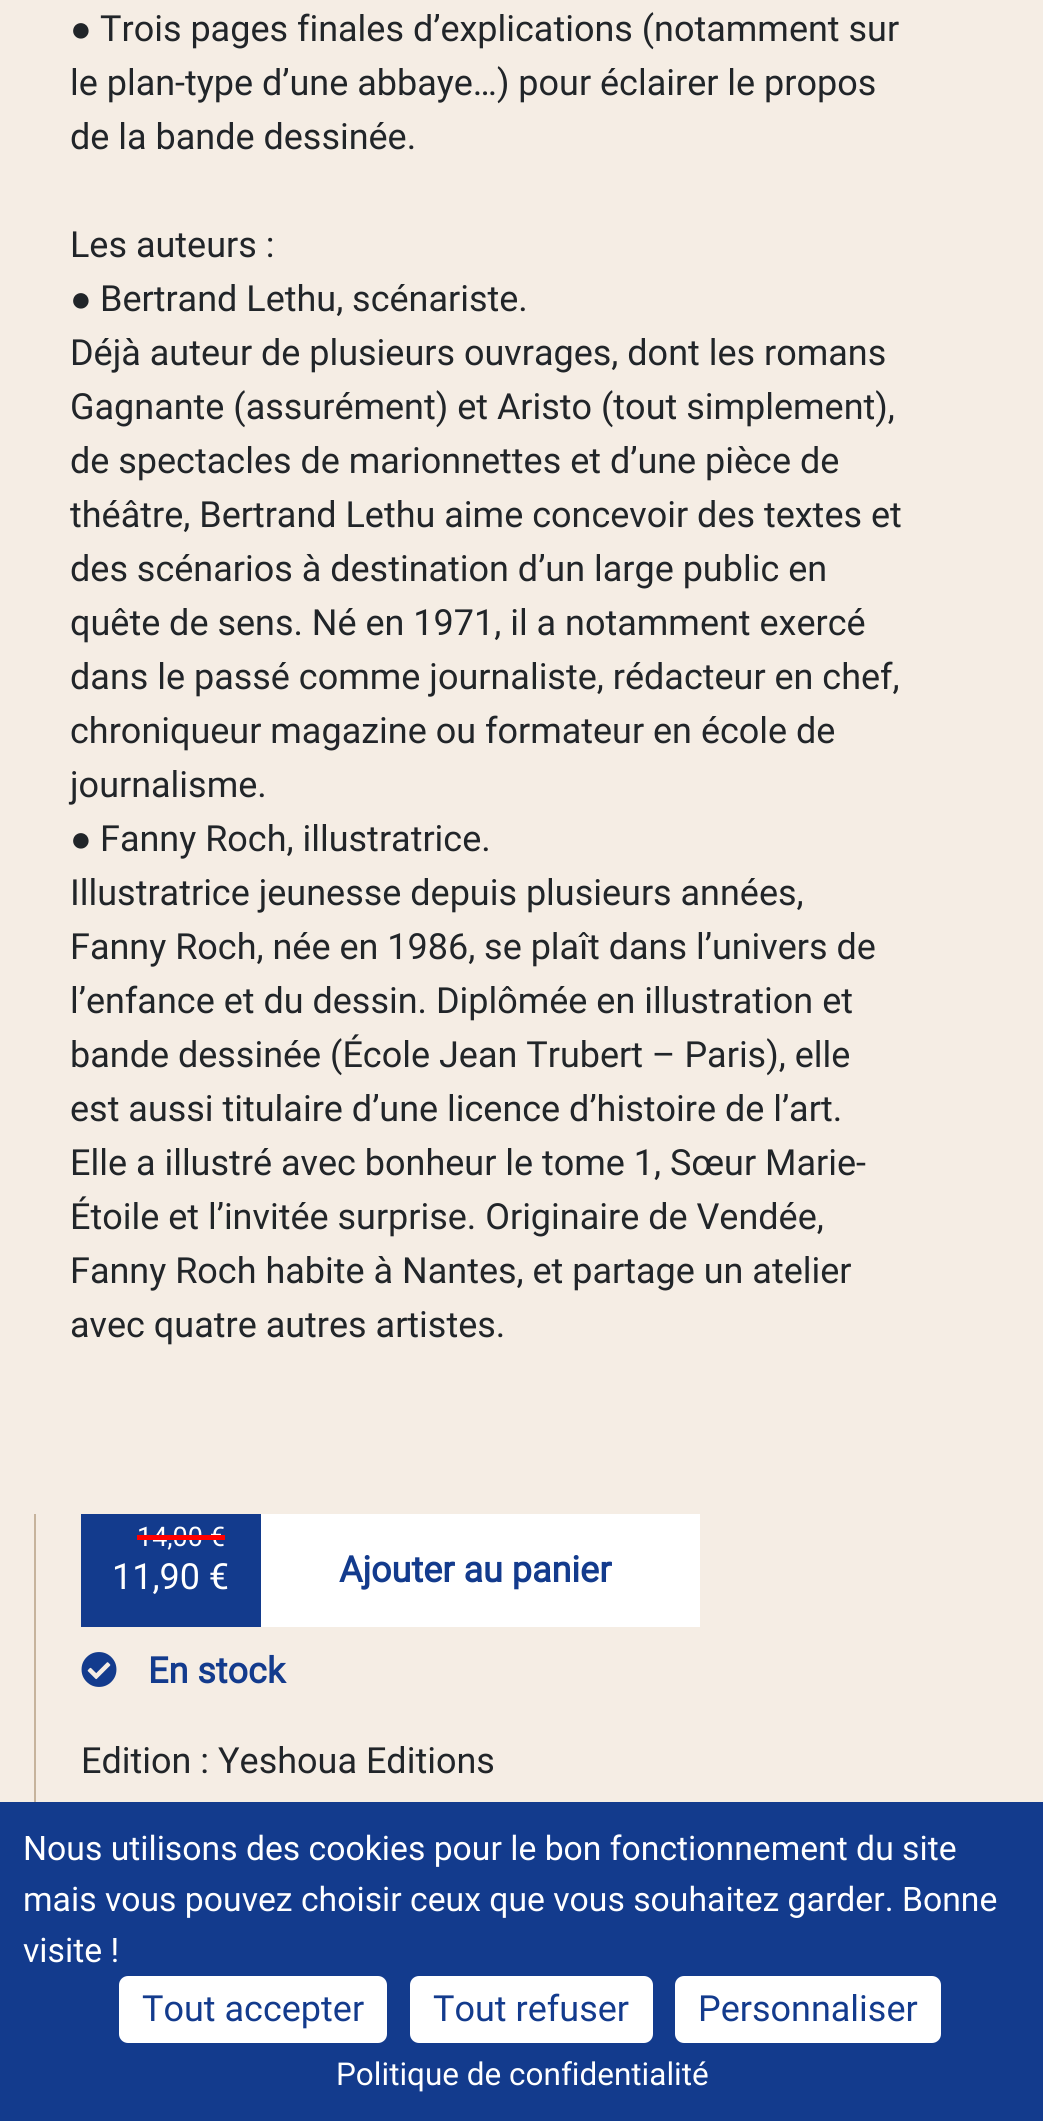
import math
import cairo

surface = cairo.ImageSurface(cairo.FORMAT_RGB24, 1043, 2121)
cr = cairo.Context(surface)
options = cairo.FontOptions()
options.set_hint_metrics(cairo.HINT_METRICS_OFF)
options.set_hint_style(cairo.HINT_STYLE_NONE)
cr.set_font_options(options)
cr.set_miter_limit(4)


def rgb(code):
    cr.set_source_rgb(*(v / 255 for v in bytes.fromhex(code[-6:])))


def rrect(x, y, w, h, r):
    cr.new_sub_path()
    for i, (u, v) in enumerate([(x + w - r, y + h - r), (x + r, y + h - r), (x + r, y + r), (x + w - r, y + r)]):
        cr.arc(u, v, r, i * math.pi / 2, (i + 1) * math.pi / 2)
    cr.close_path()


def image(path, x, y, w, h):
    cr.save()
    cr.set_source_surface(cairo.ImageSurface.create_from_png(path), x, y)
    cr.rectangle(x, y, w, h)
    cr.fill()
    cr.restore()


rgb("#f5ede4")
cr.paint()
for x, y, w, h, color in [
    (34, 1514, 2, 288, "#c6b39c"),
    (81, 1514, 180, 113, "#133b8d"),
    (261, 1514, 439, 113, "#ffffff"),
]:
    rgb(color)
    cr.rectangle(x, y, w, h)
    cr.fill()
image("img/1.png", 81, 1652, 36, 35)
rgb("#133b8d")
cr.rectangle(0, 1802, 1043, 319)
cr.fill()
rgb("#ffffff")
rrect(119, 1976, 268, 67, 9)
cr.fill()
rrect(410, 1976, 243, 67, 9)
cr.fill()
rrect(675, 1976, 266, 67, 9)
cr.fill()
cr.select_font_face("Liberation Sans")
cr.set_font_size(36)
rgb("#212529")
cr.move_to(70, 41)
cr.show_text("●")
cr.select_font_face("Roboto")
for x, y, s in [
    (100, 41, "Trois pages finales d’explications (notamment sur"),
    (70, 95, "le plan-type d’une abbaye…) pour éclairer le propos"),
    (70, 149, "de la bande dessinée."),
    (70, 257, "Les auteurs :"),
]:
    cr.move_to(x, y)
    cr.show_text(s)
cr.select_font_face("Liberation Sans")
cr.move_to(70, 311)
cr.show_text("●")
cr.select_font_face("Roboto")
for x, y, s in [
    (100, 311, "Bertrand Lethu, scénariste."),
    (70, 365, "Déjà auteur de plusieurs ouvrages, dont les romans"),
    (70, 419, "Gagnante (assurément) et Aristo (tout simplement),"),
    (70, 473, "de spectacles de marionnettes et d’une pièce de"),
    (70, 527, "théâtre, Bertrand Lethu aime concevoir des textes et"),
    (70, 581, "des scénarios à destination d’un large public en"),
    (70, 635, "quête de sens. Né en 1971, il a notamment exercé"),
    (70, 689, "dans le passé comme journaliste, rédacteur en chef,"),
    (70, 743, "chroniqueur magazine ou formateur en école de"),
    (70, 797, "journalisme."),
]:
    cr.move_to(x, y)
    cr.show_text(s)
cr.select_font_face("Liberation Sans")
cr.move_to(70, 851)
cr.show_text("●")
cr.select_font_face("Roboto")
for x, y, s in [
    (100, 851, "Fanny Roch, illustratrice."),
    (70, 905, "Illustratrice jeunesse depuis plusieurs années,"),
    (70, 959, "Fanny Roch, née en 1986, se plaît dans l’univers de"),
    (70, 1013, "l’enfance et du dessin. Diplômée en illustration et"),
    (70, 1067, "bande dessinée (École Jean Trubert – Paris), elle"),
    (70, 1121, "est aussi titulaire d’une licence d’histoire de l’art."),
    (70, 1175, "Elle a illustré avec bonheur le tome 1, Sœur Marie-"),
    (70, 1229, "Étoile et l’invitée surprise. Originaire de Vendée,"),
    (70, 1283, "Fanny Roch habite à Nantes, et partage un atelier"),
    (70, 1337, "avec quatre autres artistes."),
]:
    cr.move_to(x, y)
    cr.show_text(s)
cr.set_font_size(27)
rgb("#ffffff")
cr.move_to(137, 1546)
cr.show_text("14,00 €")
rgb("#ff0000")
cr.rectangle(137, 1535, 88, 5)
cr.fill()
cr.set_font_size(36)
rgb("#ffffff")
cr.move_to(112, 1589)
cr.show_text("11,90 €")
cr.select_font_face("Roboto", cairo.FONT_SLANT_NORMAL, cairo.FONT_WEIGHT_BOLD)
rgb("#133b8d")
cr.move_to(339, 1582)
cr.show_text("Ajouter au panier")
cr.move_to(148, 1683)
cr.show_text("En stock")
cr.select_font_face("Roboto")
rgb("#212529")
cr.move_to(81, 1773)
cr.show_text("Edition : Yeshoua Editions")
cr.set_font_size(33.75)
rgb("#ffffff")
for x, y, s in [
    (23, 1860, "Nous utilisons des cookies pour le bon fonctionnement du site"),
    (23, 1911, "mais vous pouvez choisir ceux que vous souhaitez garder. Bonne"),
    (23, 1962, "visite !"),
]:
    cr.move_to(x, y)
    cr.show_text(s)
cr.set_font_size(36)
rgb("#133b8d")
for x, y, s in [
    (142, 2021, "Tout accepter"),
    (433, 2021, "Tout refuser"),
    (698, 2021, "Personnaliser"),
]:
    cr.move_to(x, y)
    cr.show_text(s)
cr.set_font_size(31.5)
rgb("#ffffff")
cr.move_to(336, 2085)
cr.show_text("Politique de confidentialité")
surface.write_to_png("page.png")
